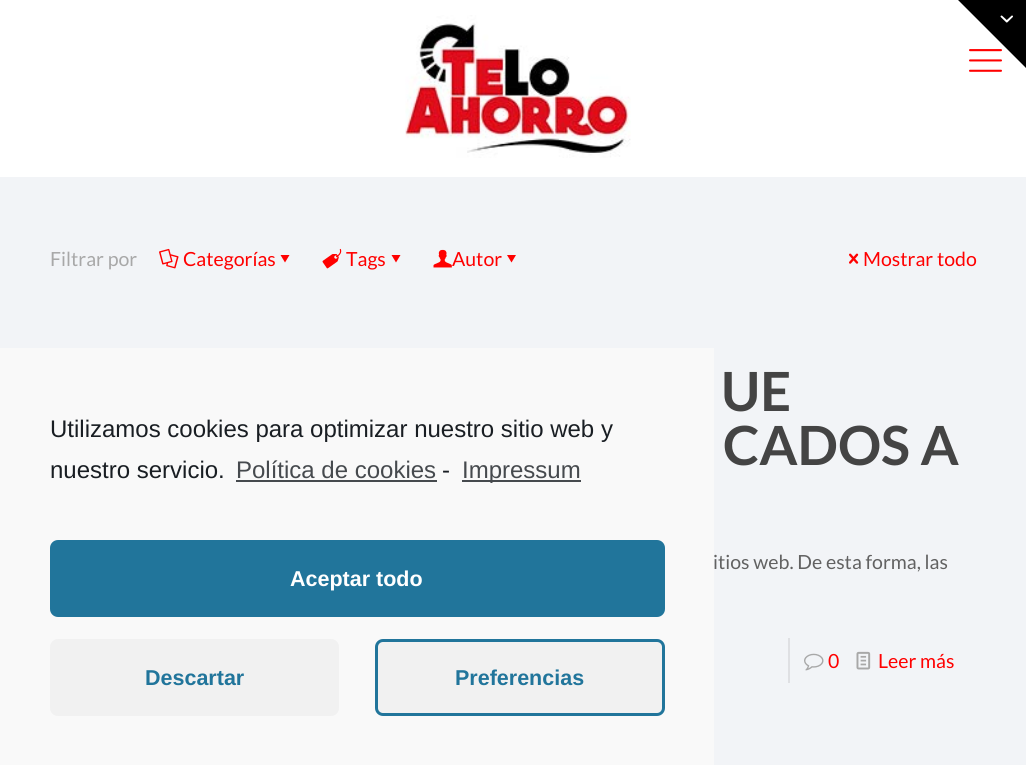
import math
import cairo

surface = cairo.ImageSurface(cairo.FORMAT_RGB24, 1026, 765)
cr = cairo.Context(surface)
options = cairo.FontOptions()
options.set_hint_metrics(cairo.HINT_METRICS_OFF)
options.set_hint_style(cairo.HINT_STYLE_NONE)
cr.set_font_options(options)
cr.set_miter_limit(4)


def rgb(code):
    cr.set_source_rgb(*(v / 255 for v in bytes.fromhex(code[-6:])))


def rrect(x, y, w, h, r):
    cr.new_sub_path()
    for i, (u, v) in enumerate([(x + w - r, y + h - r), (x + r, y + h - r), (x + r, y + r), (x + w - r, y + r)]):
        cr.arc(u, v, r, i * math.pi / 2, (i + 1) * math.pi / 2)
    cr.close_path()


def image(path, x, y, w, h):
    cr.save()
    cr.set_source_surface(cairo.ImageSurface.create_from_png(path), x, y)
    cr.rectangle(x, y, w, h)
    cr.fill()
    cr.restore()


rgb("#f2f4f7")
cr.paint()
rgb("#ffffff")
cr.rectangle(0, 0, 1026, 177)
cr.fill()
image("img/3.png", 969, 49, 33, 23)
rgb("#000000")
cr.new_path()
cr.move_to(1026, 0)
cr.line_to(1026, 68)
cr.line_to(958, 0)
cr.close_path()
cr.fill()
image("img/1.png", 1000, 15, 13, 8)
image("img/2.png", 405, 15, 226, 143)
image("img/4.png", 159, 248, 20, 21)
rgb("#ff0000")
cr.new_path()
cr.move_to(289.5, 255)
cr.line_to(285, 262.5)
cr.line_to(280.5, 255)
cr.close_path()
cr.fill()
image("img/5.png", 322, 248, 20, 21)
cr.new_path()
cr.move_to(400.5, 255)
cr.line_to(396, 262.5)
cr.line_to(391.5, 255)
cr.close_path()
cr.fill()
image("img/6.png", 433, 249, 19, 19)
cr.new_path()
cr.move_to(516, 255)
cr.line_to(511.5, 262.5)
cr.line_to(507, 255)
cr.close_path()
cr.fill()
image("img/7.png", 849, 253, 10, 11)
rgb("#dfe0e3")
cr.rectangle(788, 638, 2, 45)
cr.fill()
image("img/8.png", 804, 653, 20, 18)
image("img/9.png", 856, 651, 15, 19)
cr.select_font_face("Lato")
cr.set_font_size(19.5)
rgb("#a8a8a8")
cr.move_to(50, 266)
cr.show_text("Filtrar por")
rgb("#ff0000")
for x, y, s in [
    (183, 266, "Categorías"),
    (346, 266, "Tags"),
    (452, 266, "Autor"),
    (863, 266, "Mostrar todo"),
]:
    cr.move_to(x, y)
    cr.show_text(s)
cr.select_font_face("Lato", cairo.FONT_SLANT_NORMAL, cairo.FONT_WEIGHT_BOLD)
cr.set_font_size(54)
rgb("#444444")
cr.move_to(721, 411)
cr.show_text("UE")
cr.move_to(723, 465)
cr.show_text("CADOS A")
cr.select_font_face("Lato")
cr.set_font_size(19.5)
rgb("#626262")
cr.move_to(713, 569)
cr.show_text("itios web. De esta forma, las")
rgb("#ff0000")
cr.move_to(828, 668)
cr.show_text("0")
cr.move_to(878, 668)
cr.show_text("Leer más")
rgb("#f9f9f9")
cr.rectangle(0, 348, 714, 417)
cr.fill()
cr.select_font_face("Liberation Sans")
cr.set_font_size(24)
rgb("#191e23")
cr.move_to(50, 437)
cr.show_text("Utilizamos cookies para optimizar nuestro sitio web y")
cr.move_to(50, 478)
cr.show_text("nuestro servicio.")
rgb("#464a4e")
cr.move_to(236, 478)
cr.show_text("Política de cookies")
cr.rectangle(236, 480, 201, 2)
cr.fill()
rgb("#191e23")
cr.move_to(442, 478)
cr.show_text("-")
rgb("#464a4e")
cr.rectangle(462, 480, 119, 2)
cr.fill()
cr.move_to(462, 478)
cr.show_text("Impressum")
rgb("#21759b")
rrect(51.5, 541.5, 612, 74, 6.5)
cr.fill_preserve()
cr.set_line_width(3)
cr.stroke()
cr.select_font_face("Liberation Sans", cairo.FONT_SLANT_NORMAL, cairo.FONT_WEIGHT_BOLD)
cr.set_font_size(21.5)
rgb("#ffffff")
cr.move_to(290, 586)
cr.show_text("Aceptar todo")
rgb("#f1f1f1")
rrect(50, 639, 289, 77, 8)
cr.fill()
rgb("#21759b")
cr.move_to(145, 685)
cr.show_text("Descartar")
rgb("#f1f1f1")
rrect(376.5, 640.5, 287, 74, 6.5)
cr.fill_preserve()
rgb("#21759b")
cr.stroke()
cr.move_to(455, 685)
cr.show_text("Preferencias")
surface.write_to_png("page.png")
